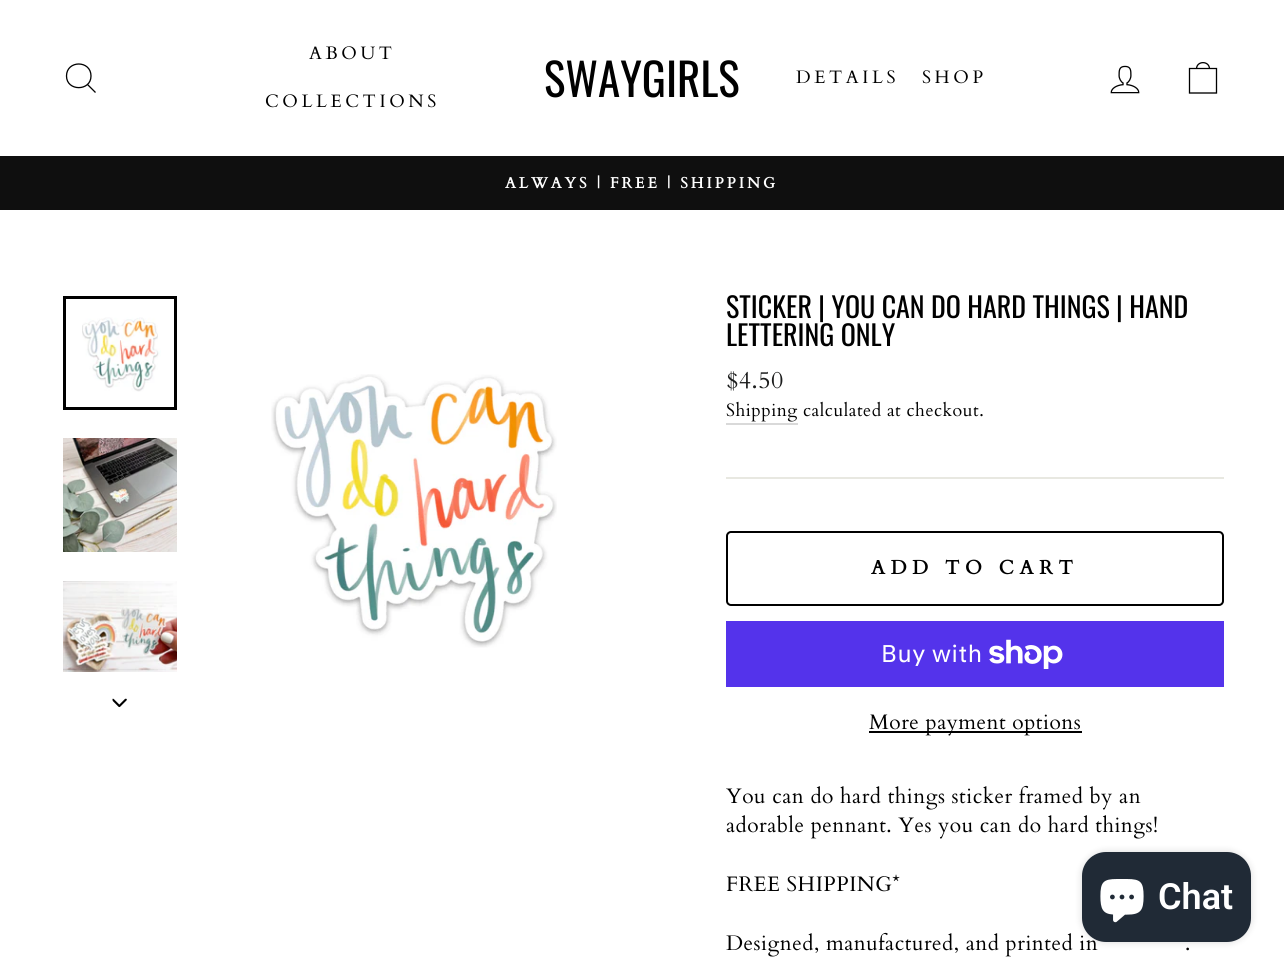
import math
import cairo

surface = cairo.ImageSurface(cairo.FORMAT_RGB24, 1284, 973)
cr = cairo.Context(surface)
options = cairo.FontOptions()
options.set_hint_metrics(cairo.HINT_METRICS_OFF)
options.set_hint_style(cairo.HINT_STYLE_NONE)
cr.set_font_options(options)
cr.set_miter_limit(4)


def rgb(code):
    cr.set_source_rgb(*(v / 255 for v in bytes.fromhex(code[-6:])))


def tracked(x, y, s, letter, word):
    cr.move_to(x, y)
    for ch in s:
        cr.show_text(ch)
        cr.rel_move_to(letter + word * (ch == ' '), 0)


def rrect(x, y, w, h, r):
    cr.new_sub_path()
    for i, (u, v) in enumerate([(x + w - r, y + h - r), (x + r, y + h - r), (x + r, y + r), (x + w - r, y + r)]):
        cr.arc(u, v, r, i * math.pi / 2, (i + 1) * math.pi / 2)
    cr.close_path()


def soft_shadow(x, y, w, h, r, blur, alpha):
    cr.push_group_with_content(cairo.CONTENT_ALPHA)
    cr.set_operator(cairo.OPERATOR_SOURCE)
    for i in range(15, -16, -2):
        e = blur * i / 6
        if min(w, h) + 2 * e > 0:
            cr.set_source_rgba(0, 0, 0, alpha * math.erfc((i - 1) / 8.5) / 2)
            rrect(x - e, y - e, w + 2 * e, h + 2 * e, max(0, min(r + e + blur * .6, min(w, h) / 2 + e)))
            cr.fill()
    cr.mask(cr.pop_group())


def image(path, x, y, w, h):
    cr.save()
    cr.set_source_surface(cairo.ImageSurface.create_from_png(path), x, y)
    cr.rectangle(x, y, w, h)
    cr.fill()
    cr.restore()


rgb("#ffffff")
cr.paint()
cr.new_path()
cr.move_to(91, 76)
cr.curve_to(91, 91.5, 66.5, 91.5, 66.5, 76)
cr.curve_to(66.5, 60, 91, 60, 91, 76)
cr.close_path()
cr.move_to(95.5, 92.5)
cr.line_to(87.5, 84.5)
rgb("#000000")
cr.set_line_width(1.3)
cr.stroke()
image("img/1.png", 1110, 65, 30, 29)
cr.new_path()
cr.move_to(1189.5, 68.5)
cr.line_to(1216.5, 68.5)
cr.line_to(1216.5, 93)
cr.line_to(1189.5, 93)
cr.close_path()
cr.move_to(1196.5, 69)
cr.curve_to(1196.5, 60.5, 1209.5, 60.5, 1209.5, 69)
cr.stroke()
rgb("#0f0f0f")
cr.rectangle(0, 156, 1284, 54)
cr.fill()
image("img/2.png", 82, 317, 79, 75)
cr.rectangle(64.5, 297.5, 111, 111)
rgb("#000000")
cr.set_line_width(3)
cr.stroke()
image("img/3.png", 63, 438, 114, 114)
image("img/4.png", 63, 581, 114, 91)
image("img/5.png", 112, 698, 15, 10)
image("img/6.png", 271, 374, 286, 274)
rgb("#d9d9d9")
cr.rectangle(726, 423, 72, 2)
cr.fill()
rgb("#e8e8e1")
cr.rectangle(726, 477, 498, 2)
cr.fill()
rrect(727, 532, 496, 73, 4)
rgb("#000000")
cr.set_line_width(2)
cr.stroke()
rgb("#5433eb")
cr.rectangle(726, 621, 498, 66)
cr.fill()
image("img/7.png", 989, 639, 74, 30)
rgb("#000000")
cr.rectangle(869, 731, 213, 2)
cr.fill()
rgb("#000000")
soft_shadow(1082, 852, 169, 90, 24, 4, 0.15)
cr.select_font_face("Cardo")
cr.set_font_size(18)
rgb("#000000")
tracked(309, 59, "ABOUT", 3.6, 0)
tracked(265, 107, "COLLECTIONS", 3.6, 0)
cr.select_font_face("Oswald")
cr.set_font_size(45)
cr.move_to(544, 97)
cr.show_text("SWAYGIRLS")
cr.select_font_face("Cardo")
cr.set_font_size(18)
tracked(796, 83, "DETAILS", 3.6, 0)
tracked(922, 83, "SHOP", 3.6, 0)
cr.select_font_face("Cardo", cairo.FONT_SLANT_NORMAL, cairo.FONT_WEIGHT_BOLD)
cr.set_font_size(15.2)
rgb("#ffffff")
tracked(505, 188, "ALWAYS | FREE | SHIPPING", 3, 0)
cr.select_font_face("Oswald")
cr.set_font_size(28)
rgb("#000000")
cr.move_to(726, 318)
cr.show_text("STICKER | YOU CAN DO HARD THINGS | HAND")
cr.move_to(726, 346)
cr.show_text("LETTERING ONLY")
cr.select_font_face("Cardo")
cr.set_font_size(24)
rgb("#1c1d1d")
tracked(726, 388, "$4.50", 0.5, 0)
cr.set_font_size(17.8)
rgb("#000000")
tracked(726, 416, "Shipping", 0.5, 0)
tracked(803, 416, "calculated at checkout.", 0.5, 0)
cr.select_font_face("Cardo", cairo.FONT_SLANT_NORMAL, cairo.FONT_WEIGHT_BOLD)
cr.set_font_size(19.5)
tracked(871, 574, "ADD TO CART", 5.8, 0)
cr.select_font_face("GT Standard")
cr.set_font_size(24)
rgb("#ffffff")
tracked(881, 662, "Buy with", 0.5, 0)
cr.select_font_face("Cardo")
cr.set_font_size(21)
rgb("#000000")
for x, y, s in [
    (869, 729, "More payment options"),
    (726, 803, "You can do hard things sticker framed by an"),
    (726, 832, "adorable pennant. Yes you can do hard things!"),
    (726, 891, "FREE SHIPPING*"),
    (726, 950, "Designed, manufactured, and printed in"),
    (1185, 950, "."),
]:
    tracked(x, y, s, 0.5, 0)
rgb("#202a36")
rrect(1082, 852, 169, 90, 24)
cr.fill()
image("img/8.png", 1100, 879, 44, 44)
cr.select_font_face("Roboto SemiBold")
cr.set_font_size(36)
rgb("#ffffff")
cr.move_to(1158, 909)
cr.show_text("Chat")
surface.write_to_png("page.png")
